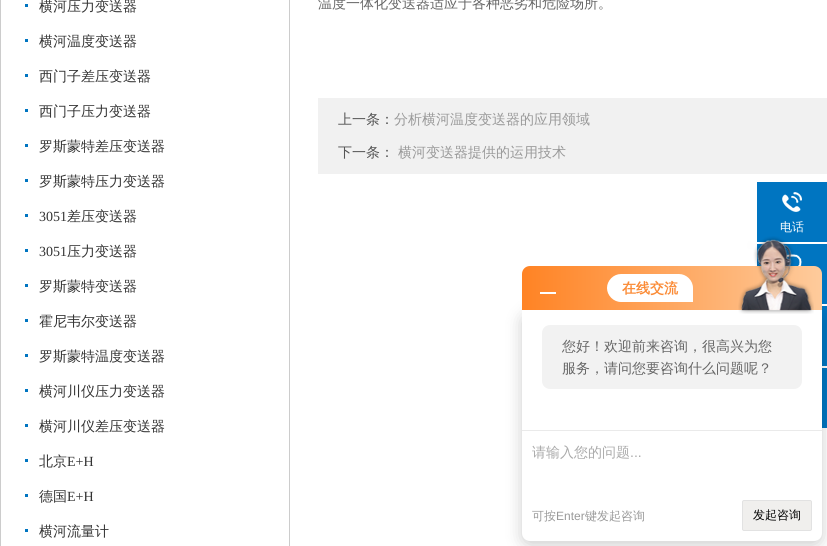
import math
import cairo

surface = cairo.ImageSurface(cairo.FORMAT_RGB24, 827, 546)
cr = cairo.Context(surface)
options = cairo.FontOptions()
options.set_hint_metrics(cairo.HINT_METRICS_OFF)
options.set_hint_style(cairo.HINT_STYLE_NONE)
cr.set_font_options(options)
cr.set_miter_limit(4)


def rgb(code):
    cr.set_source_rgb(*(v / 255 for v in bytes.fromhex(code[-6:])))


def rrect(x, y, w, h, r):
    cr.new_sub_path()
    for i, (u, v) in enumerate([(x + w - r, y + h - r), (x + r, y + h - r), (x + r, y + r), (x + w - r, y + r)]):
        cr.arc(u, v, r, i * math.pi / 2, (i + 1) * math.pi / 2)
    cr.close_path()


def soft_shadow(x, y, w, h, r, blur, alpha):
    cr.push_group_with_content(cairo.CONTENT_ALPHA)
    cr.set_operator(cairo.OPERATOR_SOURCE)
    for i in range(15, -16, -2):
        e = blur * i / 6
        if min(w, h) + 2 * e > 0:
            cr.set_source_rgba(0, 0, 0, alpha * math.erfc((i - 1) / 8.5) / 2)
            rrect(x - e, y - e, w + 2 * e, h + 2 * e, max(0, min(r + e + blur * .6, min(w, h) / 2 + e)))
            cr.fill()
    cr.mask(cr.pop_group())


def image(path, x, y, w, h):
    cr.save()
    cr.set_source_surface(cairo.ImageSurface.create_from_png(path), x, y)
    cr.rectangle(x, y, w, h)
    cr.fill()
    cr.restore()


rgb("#ffffff")
cr.paint()
for x, y, w, h, color in [
    (289, 0, 1, 546, "#cccccc"),
    (0, 0, 1, 546, "#cccccc"),
    (25, 4, 3, 3, "#0075c1"),
    (25, 39, 3, 3, "#0075c1"),
    (25, 74, 3, 3, "#0075c1"),
    (25, 109, 3, 3, "#0075c1"),
    (25, 144, 3, 3, "#0075c1"),
    (25, 179, 3, 3, "#0075c1"),
    (25, 214, 3, 3, "#0075c1"),
    (25, 249, 3, 3, "#0075c1"),
    (25, 284, 3, 3, "#0075c1"),
    (25, 319, 3, 3, "#0075c1"),
    (25, 354, 3, 3, "#0075c1"),
    (25, 389, 3, 3, "#0075c1"),
    (25, 424, 3, 3, "#0075c1"),
    (25, 459, 3, 3, "#0075c1"),
    (25, 494, 3, 3, "#0075c1"),
    (25, 529, 3, 3, "#0075c1"),
    (318, 98, 509, 76, "#f1f1f1"),
    (757, 182, 70, 60, "#0075c1"),
]:
    rgb(color)
    cr.rectangle(x, y, w, h)
    cr.fill()
image("img/1.png", 782, 192, 20, 20)
cr.rectangle(757, 244, 70, 60)
cr.fill()
image("img/2.png", 784, 254, 18, 12)
cr.rectangle(822, 306, 5, 60)
cr.fill()
cr.rectangle(822, 368, 5, 60)
cr.fill()
rgb("#000000")
soft_shadow(522, 314, 300, 231, 8, 8, 0.2)
gradient = cairo.LinearGradient(522, 288, 822, 288)
gradient.add_color_stop_rgba(0, 1, 0.514, 0.141, 1)
gradient.add_color_stop_rgba(1, 0.996, 0.796, 0.612, 1)
cr.set_source(gradient)
cr.new_path()
cr.move_to(530, 266)
cr.line_to(814, 266)
cr.curve_to(818.5, 266, 822, 269.5, 822, 274)
cr.line_to(822, 310)
cr.line_to(522, 310)
cr.line_to(522, 274)
cr.curve_to(522, 269.5, 525.5, 266, 530, 266)
cr.close_path()
cr.fill()
rgb("#ffffff")
cr.rectangle(540, 292, 16, 2)
cr.fill()
cr.new_path()
cr.move_to(621, 274)
cr.line_to(679, 274)
cr.curve_to(686.5, 274, 693, 280.5, 693, 288)
cr.line_to(693, 302)
cr.line_to(621, 302)
cr.curve_to(613.5, 302, 607, 295.5, 607, 288)
cr.curve_to(607, 280.5, 613.5, 274, 621, 274)
cr.close_path()
cr.fill()
cr.new_path()
cr.move_to(522, 310)
cr.line_to(822, 310)
cr.line_to(822, 533)
cr.curve_to(822, 537.5, 818.5, 541, 814, 541)
cr.line_to(530, 541)
cr.curve_to(525.5, 541, 522, 537.5, 522, 533)
cr.close_path()
cr.fill()
image("img/3.png", 738, 236, 76, 78)
rgb("#f2f2f2")
rrect(542, 325, 260, 64, 8)
cr.fill()
rgb("#eaeaea")
cr.rectangle(522, 430, 300, 1)
cr.fill()
rgb("#f0efed")
rrect(742.5, 500.5, 69, 30, 1.5)
cr.fill_preserve()
rgb("#e2e2e2")
cr.set_line_width(1)
cr.stroke()
cr.select_font_face("WenQuanYi Zen Hei Medium")
cr.set_font_size(14)
rgb("#333333")
for x, y, s in [
    (39, 11, "横河压力变送器"),
    (39, 46, "横河温度变送器"),
    (39, 81, "西门子差压变送器"),
    (39, 116, "西门子压力变送器"),
    (39, 151, "罗斯蒙特差压变送器"),
    (39, 186, "罗斯蒙特压力变送器"),
]:
    cr.move_to(x, y)
    cr.show_text(s)
cr.select_font_face("Liberation Serif")
cr.move_to(39, 221)
cr.show_text("3051")
cr.select_font_face("WenQuanYi Zen Hei Medium")
cr.move_to(67, 221)
cr.show_text("差压变送器")
cr.select_font_face("Liberation Serif")
cr.move_to(39, 256)
cr.show_text("3051")
cr.select_font_face("WenQuanYi Zen Hei Medium")
for x, y, s in [
    (67, 256, "压力变送器"),
    (39, 291, "罗斯蒙特变送器"),
    (39, 326, "霍尼韦尔变送器"),
    (39, 361, "罗斯蒙特温度变送器"),
    (39, 396, "横河川仪压力变送器"),
    (39, 431, "横河川仪差压变送器"),
    (39, 466, "北京"),
]:
    cr.move_to(x, y)
    cr.show_text(s)
cr.select_font_face("Liberation Serif")
cr.move_to(67, 466)
cr.show_text("E+H")
cr.select_font_face("WenQuanYi Zen Hei Medium")
cr.move_to(39, 501)
cr.show_text("德国")
cr.select_font_face("Liberation Serif")
cr.move_to(67, 501)
cr.show_text("E+H")
cr.select_font_face("WenQuanYi Zen Hei Medium")
cr.move_to(39, 536)
cr.show_text("横河流量计")
rgb("#666666")
cr.move_to(318, 8)
cr.show_text("温度一体化变送器适应于各种恶劣和危险场所。")
rgb("#555555")
cr.move_to(338, 124)
cr.show_text("上一条：")
rgb("#999999")
cr.move_to(394, 124)
cr.show_text("分析横河温度变送器的应用领域")
rgb("#555555")
cr.move_to(338, 157)
cr.show_text("下一条：")
rgb("#999999")
cr.move_to(398, 157)
cr.show_text("横河变送器提供的运用技术")
cr.set_font_size(12)
rgb("#ffffff")
cr.move_to(780, 231)
cr.show_text("电话")
cr.select_font_face("WenQuanYi Zen Hei", cairo.FONT_SLANT_NORMAL, cairo.FONT_WEIGHT_BOLD)
cr.set_font_size(14)
rgb("#fb8b36")
cr.move_to(622, 293)
cr.show_text("在线交流")
cr.select_font_face("WenQuanYi Zen Hei Medium")
rgb("#666666")
cr.move_to(562, 351)
cr.show_text("您好！欢迎前来咨询，很高兴为您")
cr.move_to(562, 373)
cr.show_text("服务，请问您要咨询什么问题呢？")
rgb("#aaaaaa")
cr.move_to(532, 457)
cr.show_text("请输入您的问题")
cr.select_font_face("Liberation Sans")
cr.move_to(630, 457)
cr.show_text("...")
cr.select_font_face("WenQuanYi Zen Hei Medium")
cr.set_font_size(12)
rgb("#999999")
cr.move_to(532, 520)
cr.show_text("可按")
cr.select_font_face("Liberation Sans")
cr.move_to(556, 520)
cr.show_text("Enter")
cr.select_font_face("WenQuanYi Zen Hei Medium")
cr.move_to(585, 520)
cr.show_text("键发起咨询")
rgb("#000000")
cr.move_to(753, 519)
cr.show_text("发起咨询")
surface.write_to_png("page.png")
